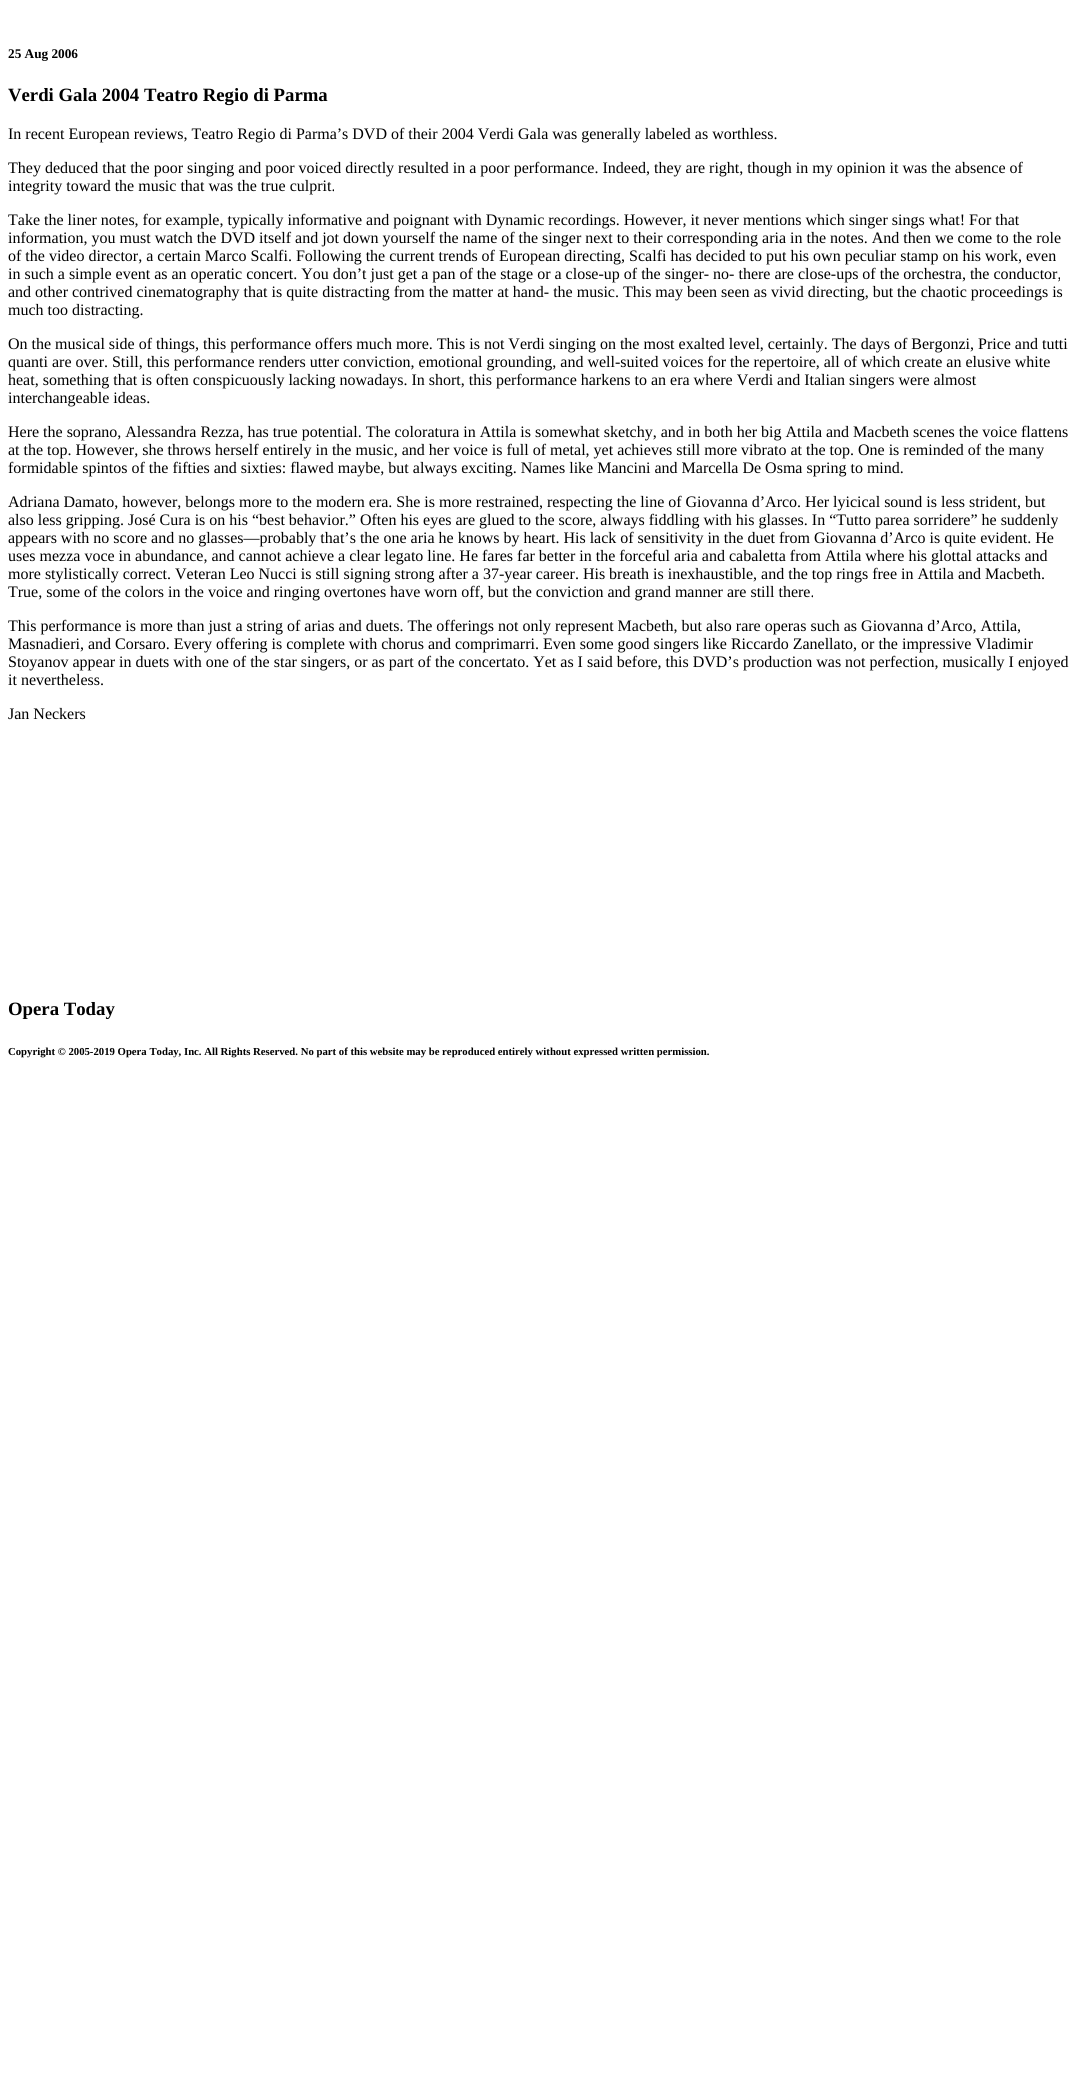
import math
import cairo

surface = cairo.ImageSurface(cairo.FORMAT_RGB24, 1080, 2073)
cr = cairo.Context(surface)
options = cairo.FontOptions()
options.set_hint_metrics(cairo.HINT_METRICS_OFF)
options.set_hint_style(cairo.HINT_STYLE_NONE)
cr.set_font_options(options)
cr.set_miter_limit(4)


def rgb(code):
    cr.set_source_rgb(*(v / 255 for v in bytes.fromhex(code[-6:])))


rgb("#ffffff")
cr.paint()
cr.select_font_face("Liberation Serif", cairo.FONT_SLANT_NORMAL, cairo.FONT_WEIGHT_BOLD)
cr.set_font_size(13.25)
rgb("#000000")
cr.move_to(8, 58)
cr.show_text("25 Aug 2006")
cr.set_font_size(18.75)
cr.move_to(8, 101)
cr.show_text("Verdi Gala 2004 Teatro Regio di Parma")
cr.select_font_face("Liberation Serif")
cr.set_font_size(16)
for x, y, s in [
    (8, 139, "In recent European reviews, Teatro Regio di Parma’s DVD of their 2004 Verdi Gala was generally labeled as worthless."),
    (8, 173, "They deduced that the poor singing and poor voiced directly resulted in a poor performance. Indeed, they are right, though in my opinion it was the absence of"),
    (8, 191, "integrity toward the music that was the true culprit."),
    (8, 225, "Take the liner notes, for example, typically informative and poignant with Dynamic recordings. However, it never mentions which singer sings what! For that"),
    (8, 243, "information, you must watch the DVD itself and jot down yourself the name of the singer next to their corresponding aria in the notes. And then we come to the role"),
    (8, 261, "of the video director, a certain Marco Scalfi. Following the current trends of European directing, Scalfi has decided to put his own peculiar stamp on his work, even"),
    (8, 279, "in such a simple event as an operatic concert. You don’t just get a pan of the stage or a close-up of the singer- no- there are close-ups of the orchestra, the conductor,"),
    (8, 297, "and other contrived cinematography that is quite distracting from the matter at hand- the music. This may been seen as vivid directing, but the chaotic proceedings is"),
    (8, 315, "much too distracting."),
    (8, 349, "On the musical side of things, this performance offers much more. This is not Verdi singing on the most exalted level, certainly. The days of Bergonzi, Price and tutti"),
    (8, 367, "quanti are over. Still, this performance renders utter conviction, emotional grounding, and well-suited voices for the repertoire, all of which create an elusive white"),
    (8, 385, "heat, something that is often conspicuously lacking nowadays. In short, this performance harkens to an era where Verdi and Italian singers were almost"),
    (8, 403, "interchangeable ideas."),
    (8, 437, "Here the soprano, Alessandra Rezza, has true potential. The coloratura in Attila is somewhat sketchy, and in both her big Attila and Macbeth scenes the voice flattens"),
    (8, 455, "at the top. However, she throws herself entirely in the music, and her voice is full of metal, yet achieves still more vibrato at the top. One is reminded of the many"),
    (8, 473, "formidable spintos of the fifties and sixties: flawed maybe, but always exciting. Names like Mancini and Marcella De Osma spring to mind."),
    (8, 507, "Adriana Damato, however, belongs more to the modern era. She is more restrained, respecting the line of Giovanna d’Arco. Her lyicical sound is less strident, but"),
    (8, 525, "also less gripping. José Cura is on his “best behavior.” Often his eyes are glued to the score, always fiddling with his glasses. In “Tutto parea sorridere” he suddenly"),
    (8, 543, "appears with no score and no glasses—probably that’s the one aria he knows by heart. His lack of sensitivity in the duet from Giovanna d’Arco is quite evident. He"),
    (8, 561, "uses mezza voce in abundance, and cannot achieve a clear legato line. He fares far better in the forceful aria and cabaletta from Attila where his glottal attacks and"),
    (8, 579, "more stylistically correct. Veteran Leo Nucci is still signing strong after a 37-year career. His breath is inexhaustible, and the top rings free in Attila and Macbeth."),
    (8, 597, "True, some of the colors in the voice and ringing overtones have worn off, but the conviction and grand manner are still there."),
    (8, 631, "This performance is more than just a string of arias and duets. The offerings not only represent Macbeth, but also rare operas such as Giovanna d’Arco, Attila,"),
    (8, 649, "Masnadieri, and Corsaro. Every offering is complete with chorus and comprimarri. Even some good singers like Riccardo Zanellato, or the impressive Vladimir"),
    (8, 667, "Stoyanov appear in duets with one of the star singers, or as part of the concertato. Yet as I said before, this DVD’s production was not perfection, musically I enjoyed"),
    (8, 685, "it nevertheless."),
    (8, 719, "Jan Neckers"),
]:
    cr.move_to(x, y)
    cr.show_text(s)
cr.select_font_face("Liberation Serif", cairo.FONT_SLANT_NORMAL, cairo.FONT_WEIGHT_BOLD)
cr.set_font_size(18.75)
cr.move_to(8, 1015)
cr.show_text("Opera Today")
cr.set_font_size(10.72)
cr.move_to(8, 1055)
cr.show_text("Copyright © 2005-2019 Opera Today, Inc. All Rights Reserved. No part of this website may be reproduced entirely without expressed written permission.")
surface.write_to_png("page.png")
